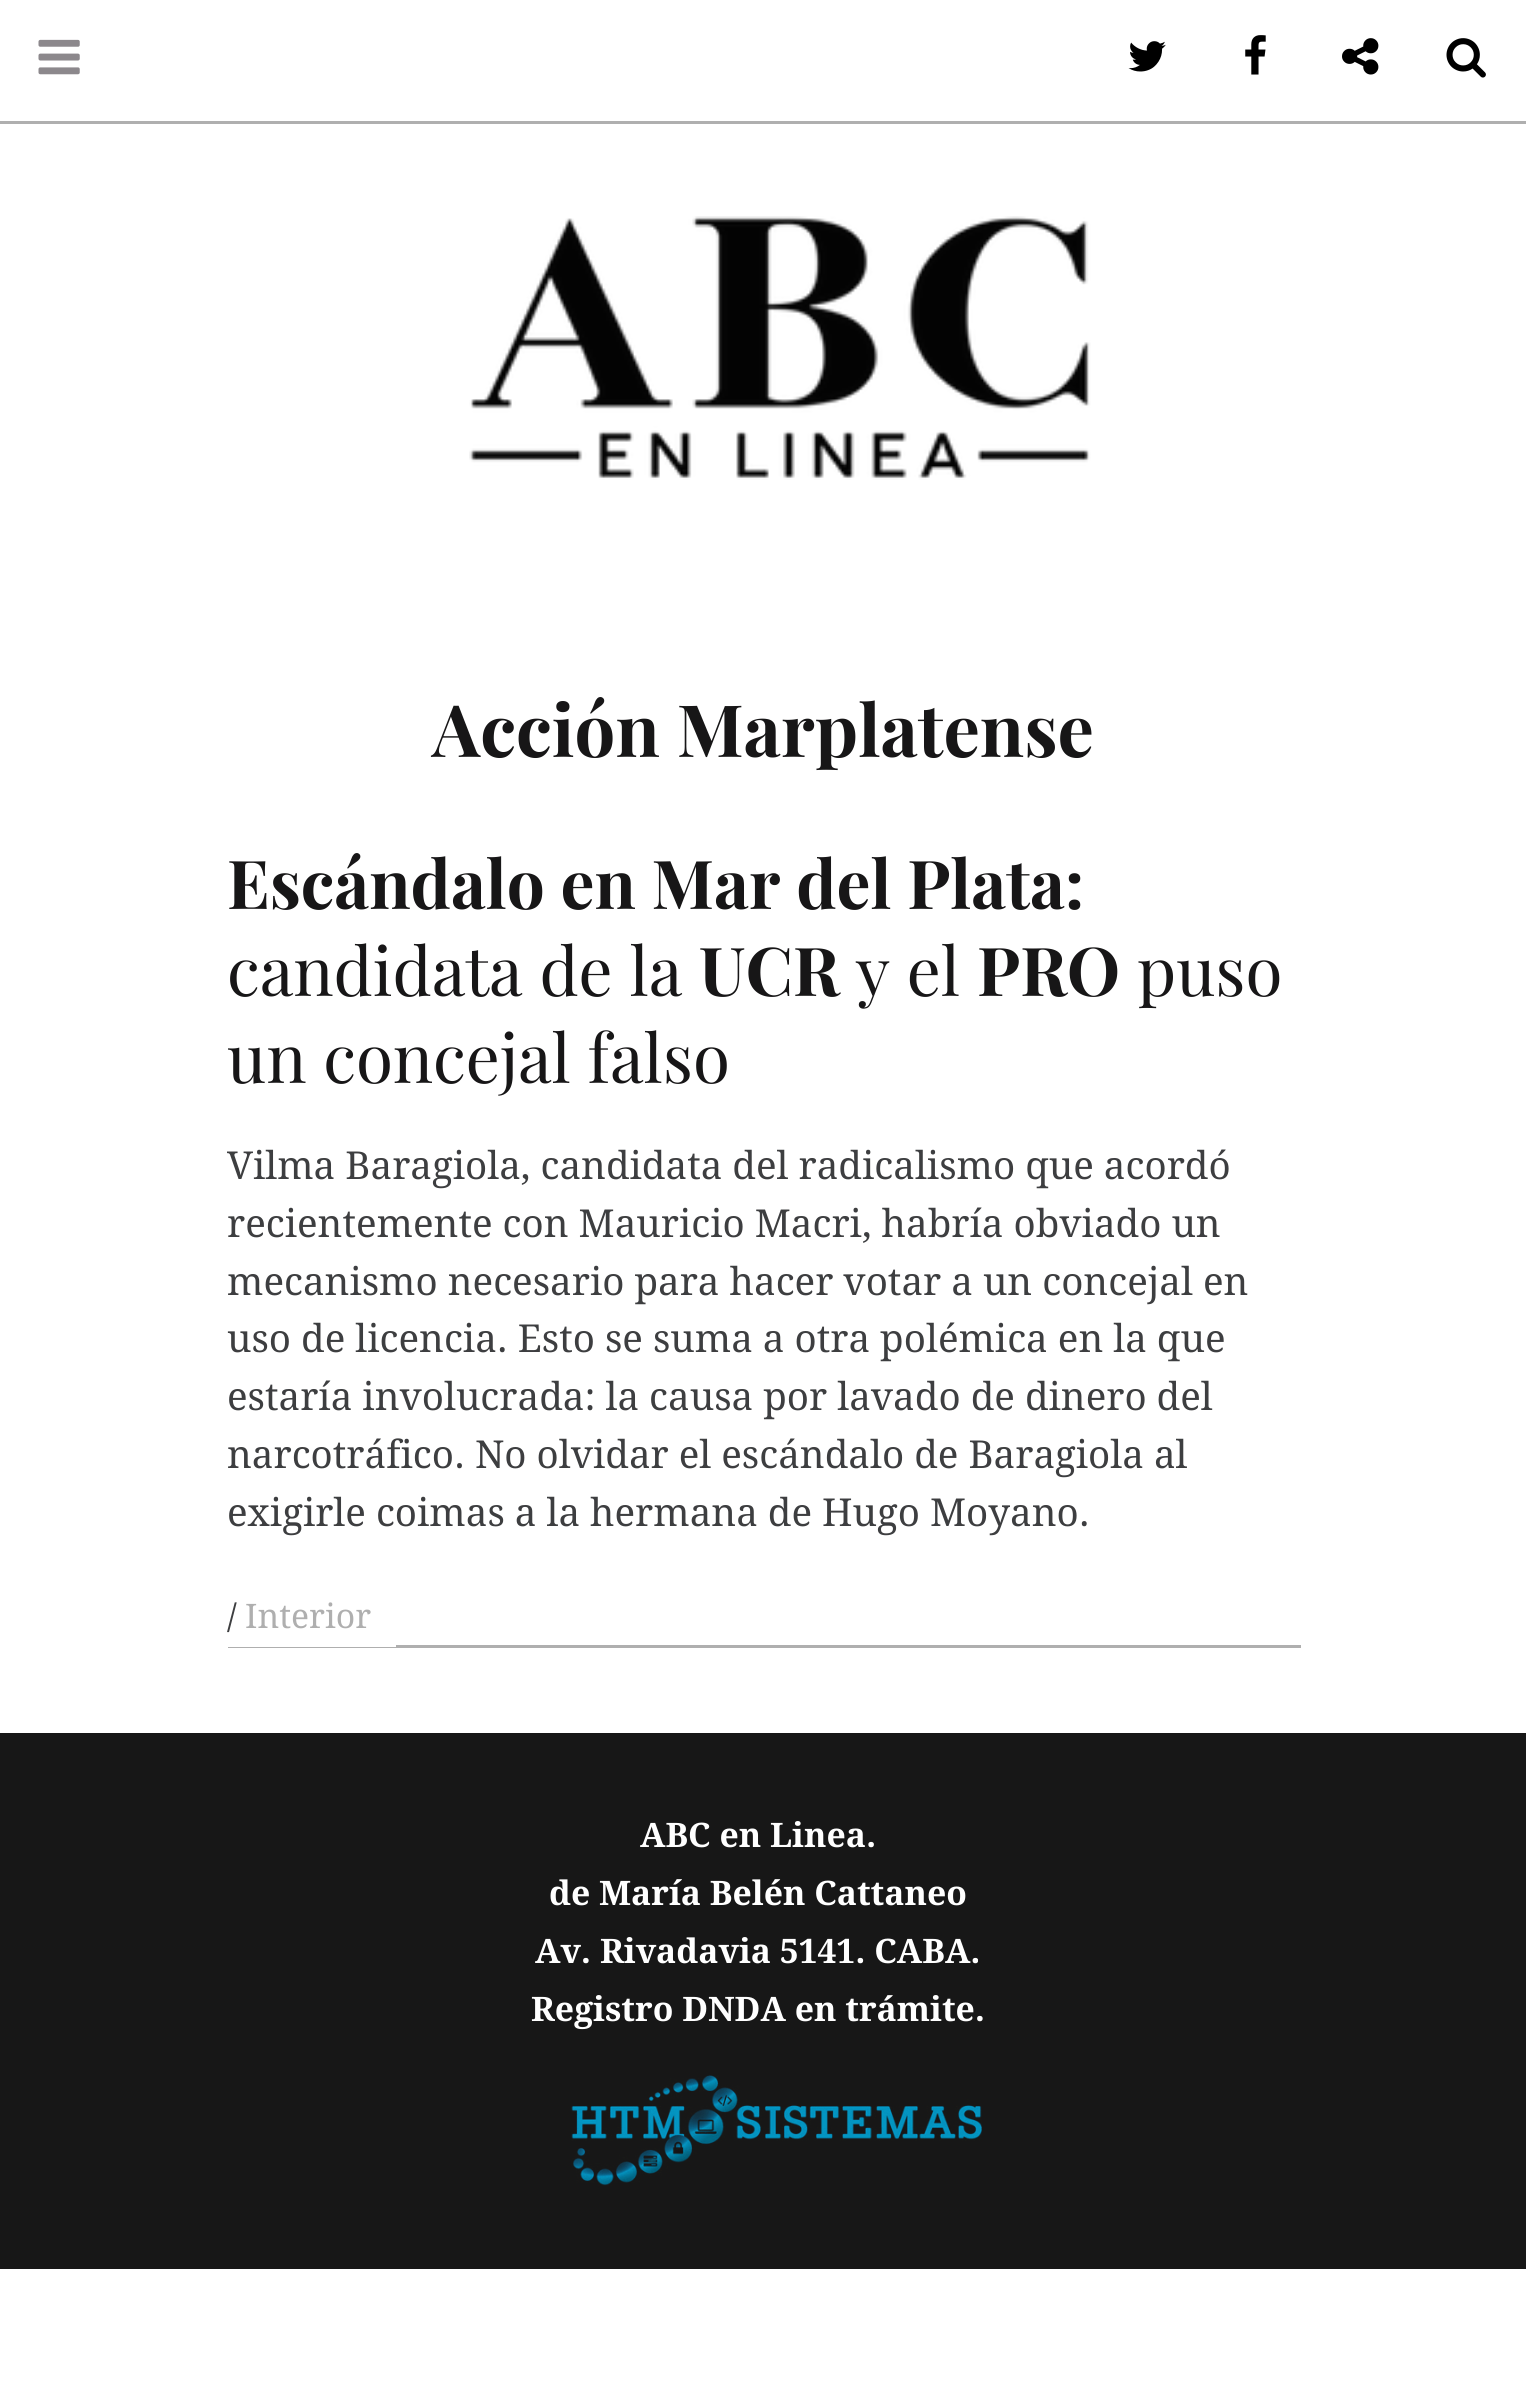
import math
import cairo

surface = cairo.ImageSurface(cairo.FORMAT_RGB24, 1526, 2393)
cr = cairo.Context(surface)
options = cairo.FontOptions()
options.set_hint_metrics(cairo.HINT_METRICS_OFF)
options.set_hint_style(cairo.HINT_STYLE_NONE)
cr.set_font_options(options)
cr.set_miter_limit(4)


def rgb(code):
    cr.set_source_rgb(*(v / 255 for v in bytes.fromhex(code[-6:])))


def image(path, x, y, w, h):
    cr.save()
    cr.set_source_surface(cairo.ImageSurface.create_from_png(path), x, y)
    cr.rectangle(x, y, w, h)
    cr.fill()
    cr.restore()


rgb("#ffffff")
cr.paint()
rgb("#afafaf")
cr.rectangle(0, 121, 1526, 3)
cr.fill()
image("img/1.png", 1128, 41, 38, 31)
image("img/2.png", 1245, 35, 21, 40)
image("img/3.png", 1342, 38, 37, 37)
image("img/4.png", 1446, 38, 40, 40)
image("img/5.png", 38, 39, 42, 36)
image("img/6.png", 469, 216, 622, 264)
for x, y, w, h, color in [
    (228, 1645, 1073, 3, "#afafaf"),
    (228, 1645, 168, 2, "#ffffff"),
    (0, 1733, 1526, 536, "#171717"),
]:
    rgb(color)
    cr.rectangle(x, y, w, h)
    cr.fill()
image("img/7.png", 571, 2075, 411, 111)
cr.select_font_face("Playfair Display", cairo.FONT_SLANT_NORMAL, cairo.FONT_WEIGHT_BOLD)
cr.set_font_size(72.25)
rgb("#171617")
cr.move_to(432, 757)
cr.show_text("Acción Marplatense")
cr.set_font_size(67.4)
cr.move_to(227, 909)
cr.show_text("Escándalo en Mar del Plata:")
cr.select_font_face("Playfair Display")
cr.move_to(227, 996)
cr.show_text("candidata de la")
cr.select_font_face("Playfair Display", cairo.FONT_SLANT_NORMAL, cairo.FONT_WEIGHT_BOLD)
cr.move_to(699, 996)
cr.show_text("UCR")
cr.select_font_face("Playfair Display")
cr.move_to(856, 996)
cr.show_text("y el")
cr.select_font_face("Playfair Display", cairo.FONT_SLANT_NORMAL, cairo.FONT_WEIGHT_BOLD)
cr.move_to(977, 996)
cr.show_text("PRO")
cr.select_font_face("Playfair Display")
cr.move_to(1137, 996)
cr.show_text("puso")
cr.move_to(227, 1083)
cr.show_text("un concejal falso")
cr.select_font_face("Droid Serif")
cr.set_font_size(38.5)
rgb("#3d3e40")
for x, y, s in [
    (227, 1179, "Vilma Baragiola, candidata del radicalismo que acordó"),
    (227, 1237, "recientemente con Mauricio Macri, habría obviado un"),
    (227, 1295, "mecanismo necesario para hacer votar a un concejal en"),
    (227, 1352, "uso de licencia. Esto se suma a otra polémica en la que"),
    (227, 1410, "estaría involucrada: la causa por lavado de dinero del"),
    (227, 1468, "narcotráfico. No olvidar el escándalo de Baragiola al"),
    (227, 1526, "exigirle coimas a la hermana de Hugo Moyano."),
]:
    cr.move_to(x, y)
    cr.show_text(s)
cr.set_font_size(33.75)
cr.move_to(227, 1628)
cr.show_text("/")
rgb("#afafaf")
cr.move_to(245, 1628)
cr.show_text("Interior")
cr.select_font_face("Droid Serif", cairo.FONT_SLANT_NORMAL, cairo.FONT_WEIGHT_BOLD)
rgb("#ffffff")
for x, y, s in [
    (640, 1847, "ABC en Linea."),
    (549, 1905, "de María Belén Cattaneo"),
    (535, 1963, "Av. Rivadavia 5141. CABA."),
    (531, 2021, "Registro DNDA en trámite."),
]:
    cr.move_to(x, y)
    cr.show_text(s)
surface.write_to_png("page.png")
